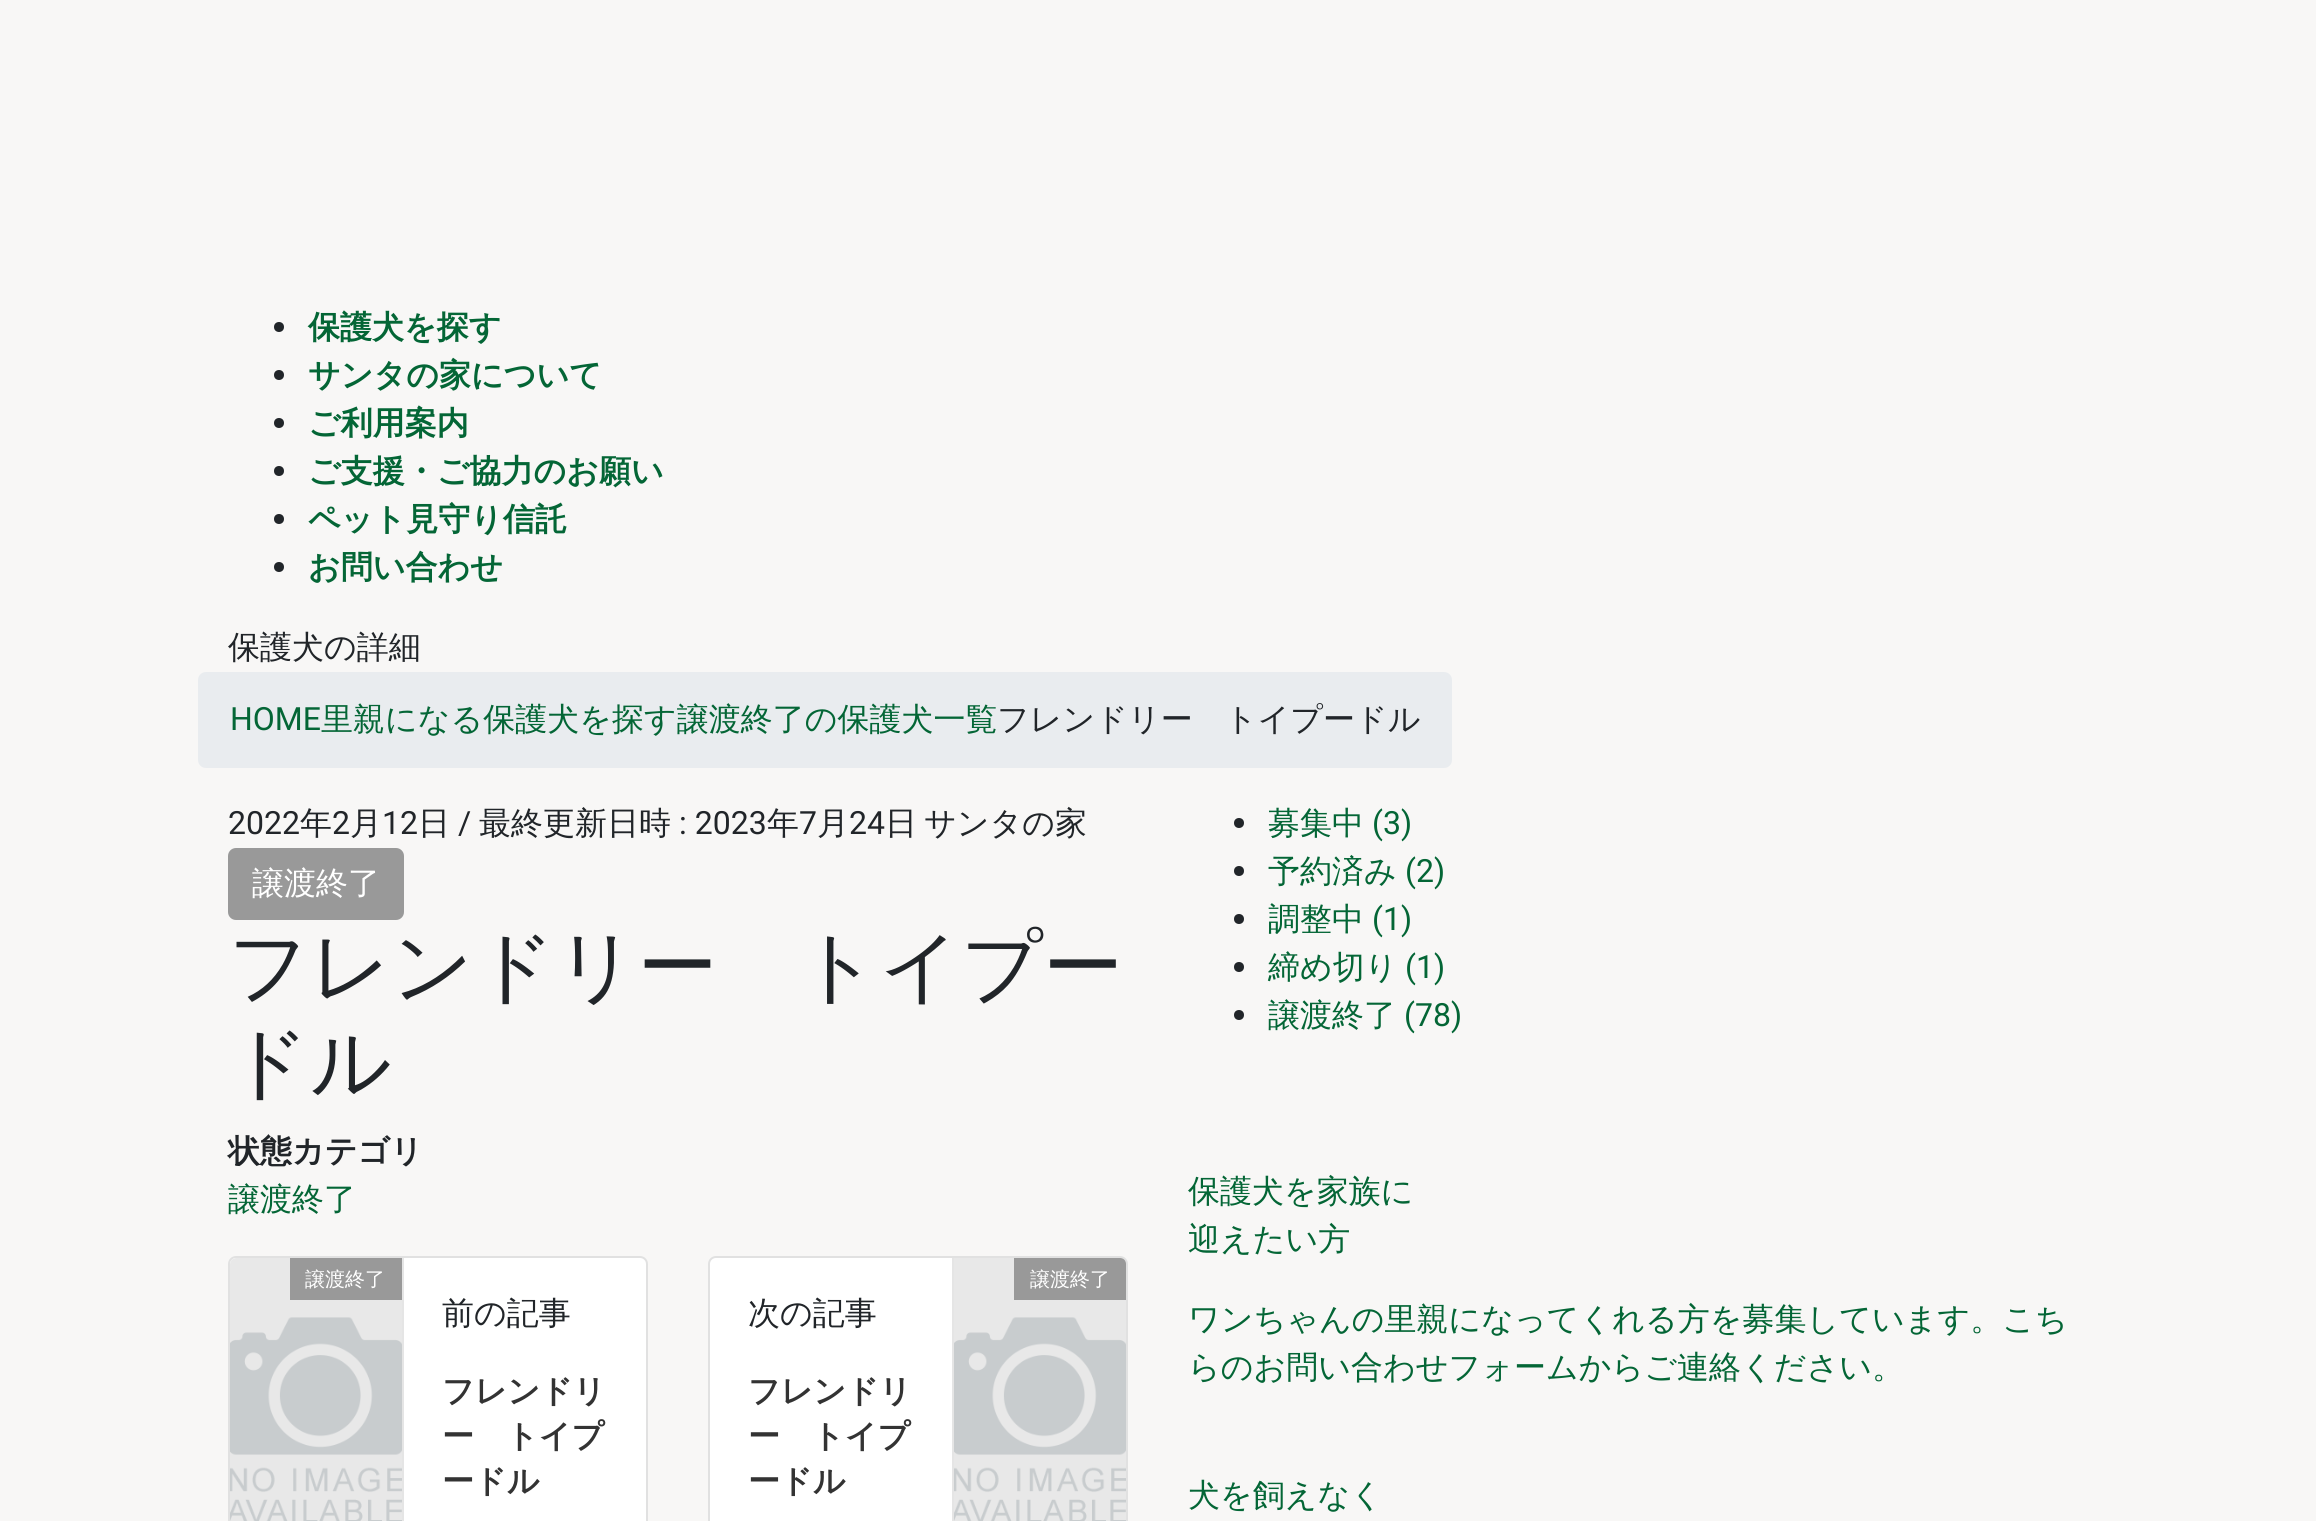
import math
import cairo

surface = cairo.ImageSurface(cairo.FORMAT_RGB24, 2316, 1521)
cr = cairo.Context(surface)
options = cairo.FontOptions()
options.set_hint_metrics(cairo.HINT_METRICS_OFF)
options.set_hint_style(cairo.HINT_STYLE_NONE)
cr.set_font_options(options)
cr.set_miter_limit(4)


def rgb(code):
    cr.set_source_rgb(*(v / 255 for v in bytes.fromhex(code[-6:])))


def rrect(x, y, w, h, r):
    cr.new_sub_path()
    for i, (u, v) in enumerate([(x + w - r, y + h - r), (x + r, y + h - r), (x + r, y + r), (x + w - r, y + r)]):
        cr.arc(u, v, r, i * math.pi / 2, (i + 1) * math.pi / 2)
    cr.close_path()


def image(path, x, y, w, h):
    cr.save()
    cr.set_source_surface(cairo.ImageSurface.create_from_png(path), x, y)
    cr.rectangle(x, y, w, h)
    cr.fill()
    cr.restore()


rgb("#f8f7f6")
cr.paint()
rgb("#212529")
cr.arc(279, 327, 5, 0, 2 * math.pi)
cr.fill()
cr.arc(279, 375, 5, 0, 2 * math.pi)
cr.fill()
cr.arc(279, 423, 5, 0, 2 * math.pi)
cr.fill()
cr.arc(279, 471, 5, 0, 2 * math.pi)
cr.fill()
cr.arc(279, 519, 5, 0, 2 * math.pi)
cr.fill()
cr.arc(279, 567, 5, 0, 2 * math.pi)
cr.fill()
rgb("#e9ecef")
rrect(198, 672, 1254, 96, 8)
cr.fill()
rgb("#999999")
rrect(228, 848, 176, 72, 8)
cr.fill()
rgb("#ffffff")
rrect(228, 1256, 420, 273, 8)
cr.fill()
rrect(229, 1257, 418, 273, 7)
cr.set_source_rgba(0, 0, 0, 0.12)
cr.stroke()
image("img/1.png", 230, 1258, 172, 263)
rgb("#e5e5e5")
cr.rectangle(402, 1258, 2, 263)
cr.fill()
rgb("#999999")
cr.rectangle(290, 1258, 112, 42)
cr.fill()
rgb("#ffffff")
rrect(708, 1256, 420, 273, 8)
cr.fill()
rrect(709, 1257, 418, 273, 7)
cr.set_source_rgba(0, 0, 0, 0.12)
cr.stroke()
image("img/2.png", 954, 1258, 172, 263)
rgb("#e5e5e5")
cr.rectangle(952, 1258, 2, 263)
cr.fill()
rgb("#999999")
cr.new_path()
cr.move_to(1014, 1258)
cr.line_to(1120, 1258)
cr.curve_to(1123.5, 1258, 1126, 1260.5, 1126, 1264)
cr.line_to(1126, 1300)
cr.line_to(1014, 1300)
cr.close_path()
cr.fill()
rgb("#212529")
cr.arc(1239, 823, 5, 0, 2 * math.pi)
cr.fill()
cr.arc(1239, 871, 5, 0, 2 * math.pi)
cr.fill()
cr.arc(1239, 919, 5, 0, 2 * math.pi)
cr.fill()
cr.arc(1239, 967, 5, 0, 2 * math.pi)
cr.fill()
cr.arc(1239, 1015, 5, 0, 2 * math.pi)
cr.fill()
cr.select_font_face("WenQuanYi Zen Hei", cairo.FONT_SLANT_NORMAL, cairo.FONT_WEIGHT_BOLD)
cr.set_font_size(32)
rgb("#046636")
for x, y, s in [
    (308, 338, "保護犬を探す"),
    (308, 386, "サンタの家について"),
    (308, 434, "ご利用案内"),
    (308, 482, "ご支援・ご協力のお願い"),
    (308, 530, "ペット見守り信託"),
    (308, 578, "お問い合わせ"),
]:
    cr.move_to(x, y)
    cr.show_text(s)
cr.select_font_face("WenQuanYi Zen Hei Medium")
rgb("#212529")
cr.move_to(228, 658)
cr.show_text("保護犬の詳細")
cr.select_font_face("Roboto")
rgb("#046636")
cr.move_to(230, 730)
cr.show_text("HOME")
cr.select_font_face("WenQuanYi Zen Hei Medium")
cr.move_to(321, 730)
cr.show_text("里親になる保護犬を探す譲渡終了の保護犬一覧")
rgb("#212529")
cr.move_to(997, 730)
cr.show_text("フレンドリー　トイプードル")
cr.select_font_face("Roboto")
cr.move_to(228, 834)
cr.show_text("2022")
cr.select_font_face("WenQuanYi Zen Hei Medium")
cr.move_to(300, 834)
cr.show_text("年")
cr.select_font_face("Roboto")
cr.move_to(332, 834)
cr.show_text("2")
cr.select_font_face("WenQuanYi Zen Hei Medium")
cr.move_to(350, 834)
cr.show_text("月")
cr.select_font_face("Roboto")
cr.move_to(382, 834)
cr.show_text("12")
cr.select_font_face("WenQuanYi Zen Hei Medium")
cr.move_to(418, 834)
cr.show_text("日")
cr.select_font_face("Roboto")
cr.move_to(458, 834)
cr.show_text("/")
cr.select_font_face("WenQuanYi Zen Hei Medium")
cr.move_to(479, 834)
cr.show_text("最終更新日時")
cr.select_font_face("Roboto")
cr.move_to(679, 834)
cr.show_text(": 2023")
cr.select_font_face("WenQuanYi Zen Hei Medium")
cr.move_to(767, 834)
cr.show_text("年")
cr.select_font_face("Roboto")
cr.move_to(799, 834)
cr.show_text("7")
cr.select_font_face("WenQuanYi Zen Hei Medium")
cr.move_to(817, 834)
cr.show_text("月")
cr.select_font_face("Roboto")
cr.move_to(849, 834)
cr.show_text("24")
cr.select_font_face("WenQuanYi Zen Hei Medium")
cr.move_to(885, 834)
cr.show_text("日")
cr.move_to(924, 834)
cr.show_text("サンタの家")
rgb("#ffffff")
cr.move_to(252, 894)
cr.show_text("譲渡終了")
cr.set_font_size(80)
rgb("#212529")
cr.move_to(228, 994)
cr.show_text("フレンドリー　トイプー")
cr.move_to(228, 1090)
cr.show_text("ドル")
cr.select_font_face("WenQuanYi Zen Hei", cairo.FONT_SLANT_NORMAL, cairo.FONT_WEIGHT_BOLD)
cr.set_font_size(32)
cr.move_to(228, 1162)
cr.show_text("状態カテゴリ")
cr.select_font_face("WenQuanYi Zen Hei Medium")
rgb("#046636")
cr.move_to(228, 1210)
cr.show_text("譲渡終了")
cr.set_font_size(20)
rgb("#ffffff")
cr.move_to(305, 1286)
cr.show_text("譲渡終了")
cr.set_font_size(32)
rgb("#212529")
cr.move_to(442, 1324)
cr.show_text("前の記事")
cr.select_font_face("WenQuanYi Zen Hei", cairo.FONT_SLANT_NORMAL, cairo.FONT_WEIGHT_BOLD)
rgb("#333333")
for x, y, s in [
    (442, 1402, "フレンドリ"),
    (442, 1447, "ー　トイプ"),
    (442, 1492, "ードル"),
]:
    cr.move_to(x, y)
    cr.show_text(s)
cr.select_font_face("WenQuanYi Zen Hei Medium")
cr.set_font_size(20)
rgb("#ffffff")
cr.move_to(1030, 1286)
cr.show_text("譲渡終了")
cr.set_font_size(32)
rgb("#212529")
cr.move_to(748, 1324)
cr.show_text("次の記事")
cr.select_font_face("WenQuanYi Zen Hei", cairo.FONT_SLANT_NORMAL, cairo.FONT_WEIGHT_BOLD)
rgb("#333333")
for x, y, s in [
    (748, 1402, "フレンドリ"),
    (748, 1447, "ー　トイプ"),
    (748, 1492, "ードル"),
]:
    cr.move_to(x, y)
    cr.show_text(s)
cr.select_font_face("WenQuanYi Zen Hei Medium")
rgb("#046636")
cr.move_to(1268, 834)
cr.show_text("募集中")
cr.select_font_face("Roboto")
cr.move_to(1372, 834)
cr.show_text("(3)")
cr.select_font_face("WenQuanYi Zen Hei Medium")
cr.move_to(1268, 882)
cr.show_text("予約済み")
cr.select_font_face("Roboto")
cr.move_to(1405, 882)
cr.show_text("(2)")
cr.select_font_face("WenQuanYi Zen Hei Medium")
cr.move_to(1268, 930)
cr.show_text("調整中")
cr.select_font_face("Roboto")
cr.move_to(1372, 930)
cr.show_text("(1)")
cr.select_font_face("WenQuanYi Zen Hei Medium")
cr.move_to(1268, 978)
cr.show_text("締め切り")
cr.select_font_face("Roboto")
cr.move_to(1405, 978)
cr.show_text("(1)")
cr.select_font_face("WenQuanYi Zen Hei Medium")
cr.move_to(1268, 1026)
cr.show_text("譲渡終了")
cr.select_font_face("Roboto")
cr.move_to(1404, 1026)
cr.show_text("(78)")
cr.select_font_face("WenQuanYi Zen Hei Medium")
for x, y, s in [
    (1188, 1202, "保護犬を家族に"),
    (1188, 1250, "迎えたい方"),
    (1188, 1330, "ワンちゃんの里親になってくれる方を募集しています。こち"),
    (1188, 1378, "らのお問い合わせフォームからご連絡ください。"),
    (1188, 1506, "犬を飼えなく"),
]:
    cr.move_to(x, y)
    cr.show_text(s)
surface.write_to_png("page.png")
